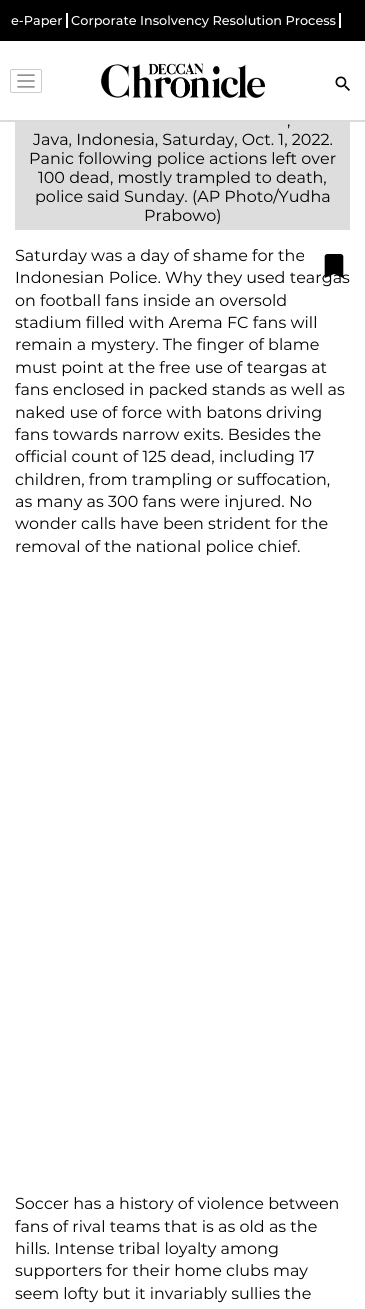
import math
import cairo

surface = cairo.ImageSurface(cairo.FORMAT_RGB24, 365, 1309)
cr = cairo.Context(surface)
options = cairo.FontOptions()
options.set_hint_metrics(cairo.HINT_METRICS_OFF)
options.set_hint_style(cairo.HINT_STYLE_NONE)
cr.set_font_options(options)
cr.set_miter_limit(4)


def rgb(code):
    cr.set_source_rgb(*(v / 255 for v in bytes.fromhex(code[-6:])))


def rrect(x, y, w, h, r):
    cr.new_sub_path()
    for i, (u, v) in enumerate([(x + w - r, y + h - r), (x + r, y + h - r), (x + r, y + r), (x + w - r, y + r)]):
        cr.arc(u, v, r, i * math.pi / 2, (i + 1) * math.pi / 2)
    cr.close_path()


def image(path, x, y, w, h):
    cr.save()
    cr.set_source_surface(cairo.ImageSurface.create_from_png(path), x, y)
    cr.rectangle(x, y, w, h)
    cr.fill()
    cr.restore()


rgb("#ffffff")
cr.paint()
for x, y, w, h, color in [
    (0, 0, 365, 41, "#000000"),
    (66, 13, 2, 15, "#ffffff"),
    (339, 13, 2, 15, "#ffffff"),
    (0, 120, 365, 2, "#dbdbdb"),
]:
    rgb(color)
    cr.rectangle(x, y, w, h)
    cr.fill()
image("img/1.png", 17, 74, 18, 14)
rrect(10.5, 69.5, 31, 23, 1.5)
rgb("#cccccc")
cr.set_line_width(1)
cr.stroke()
image("img/2.png", 101, 63, 164, 35)
image("img/3.png", 335, 76, 15, 15)
rgb("#dddddd")
cr.rectangle(15, 122, 335, 108)
cr.fill()
image("img/4.png", 324, 254, 20, 24)
cr.select_font_face("Montserrat Medium")
cr.set_font_size(12.8)
rgb("#ffffff")
cr.move_to(11, 25)
cr.show_text("e-Paper")
cr.move_to(71, 25)
cr.show_text("Corporate Insolvency Resolution Process")
cr.select_font_face("Montserrat")
cr.set_font_size(16)
rgb("#000000")
for x, y, s in [
    (287, 126, ","),
    (33, 145, "Java, Indonesia, Saturday, Oct. 1, 2022."),
    (29, 164, "Panic following police actions left over"),
    (38, 183, "100 dead, mostly trampled to death,"),
    (35, 202, "police said Sunday. (AP Photo/Yudha"),
    (144, 221, "Prabowo)"),
    (15, 261, "Saturday was a day of shame for the"),
    (15, 283, "Indonesian Police. Why they used teargas"),
    (15, 306, "on football fans inside an oversold"),
    (15, 328, "stadium filled with Arema FC fans will"),
    (15, 350, "remain a mystery. The finger of blame"),
    (15, 373, "must point at the free use of teargas at"),
    (15, 395, "fans enclosed in packed stands as well as"),
    (15, 418, "naked use of force with batons driving"),
    (15, 440, "fans towards narrow exits. Besides the"),
    (15, 462, "official count of 125 dead, including 17"),
    (15, 485, "children, from trampling or suffocation,"),
    (15, 507, "as many as 300 fans were injured. No"),
    (15, 529, "wonder calls have been strident for the"),
    (15, 552, "removal of the national police chief."),
    (15, 1209, "Soccer has a history of violence between"),
    (15, 1232, "fans of rival teams that is as old as the"),
    (15, 1254, "hills. Intense tribal loyalty among"),
    (15, 1276, "supporters for their home clubs may"),
    (15, 1299, "seem lofty but it invariably sullies the"),
]:
    cr.move_to(x, y)
    cr.show_text(s)
surface.write_to_png("page.png")
